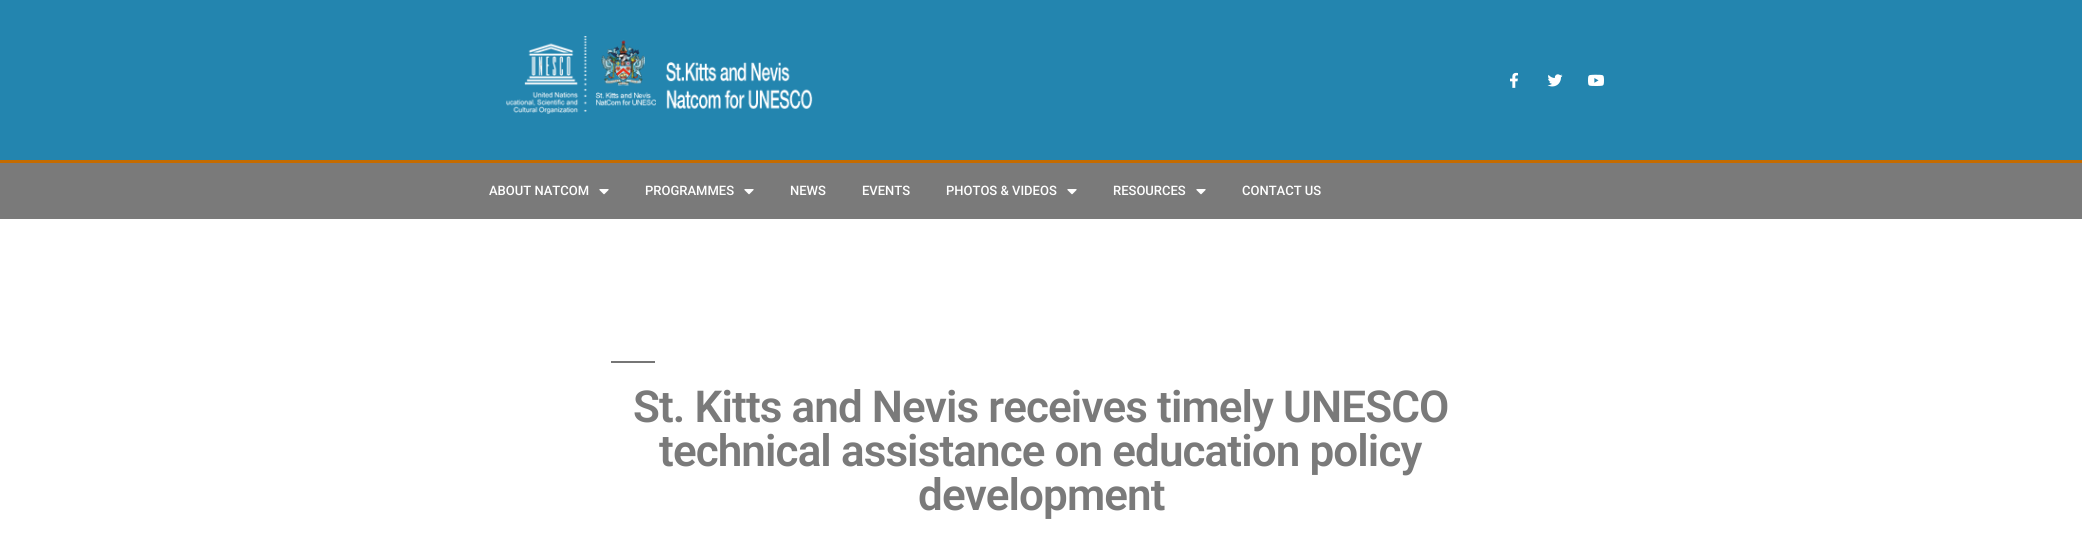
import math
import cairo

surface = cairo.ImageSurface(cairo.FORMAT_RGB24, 2082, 535)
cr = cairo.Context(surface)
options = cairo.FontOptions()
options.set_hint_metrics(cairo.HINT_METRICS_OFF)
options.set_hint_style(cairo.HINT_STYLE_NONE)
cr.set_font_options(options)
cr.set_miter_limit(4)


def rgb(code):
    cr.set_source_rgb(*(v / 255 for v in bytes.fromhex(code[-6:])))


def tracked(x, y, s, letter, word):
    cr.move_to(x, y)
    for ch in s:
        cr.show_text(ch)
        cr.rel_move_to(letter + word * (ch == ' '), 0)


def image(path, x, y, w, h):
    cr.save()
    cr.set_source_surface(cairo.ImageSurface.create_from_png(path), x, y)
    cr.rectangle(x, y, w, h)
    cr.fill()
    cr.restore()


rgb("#ffffff")
cr.paint()
rgb("#2385af")
cr.rectangle(0, 0, 2082, 160)
cr.fill()
image("img/1.png", 506, 36, 307, 78)
image("img/2.png", 1510, 72, 8, 16)
image("img/3.png", 1547, 74, 16, 13)
image("img/4.png", 1588, 74, 16, 12)
rgb("#7a7a7a")
cr.rectangle(0, 163, 2082, 56)
cr.fill()
rgb("#c46b00")
cr.rectangle(0, 160, 2082, 3)
cr.fill()
image("img/5.png", 599, 189, 10, 6)
image("img/5.png", 744, 189, 10, 6)
image("img/5.png", 1067, 189, 10, 6)
image("img/5.png", 1196, 189, 10, 6)
rgb("#767676")
cr.rectangle(611, 361, 44, 2)
cr.fill()
cr.select_font_face("Roboto Medium")
cr.set_font_size(13)
rgb("#ffffff")
for x, y, s in [
    (489, 195, "ABOUT NATCOM"),
    (645, 195, "PROGRAMMES"),
    (790, 195, "NEWS"),
    (862, 195, "EVENTS"),
    (946, 195, "PHOTOS & VIDEOS"),
    (1113, 195, "RESOURCES"),
    (1242, 195, "CONTACT US"),
]:
    cr.move_to(x, y)
    cr.show_text(s)
cr.select_font_face("Roboto SemiBold")
cr.set_font_size(44)
rgb("#7a7a7a")
for x, y, s in [
    (633, 422, "St. Kitts and Nevis receives timely UNESCO"),
    (659, 466, "technical assistance on education policy"),
    (918, 510, "development"),
]:
    tracked(x, y, s, -0.9, 0)
surface.write_to_png("page.png")
